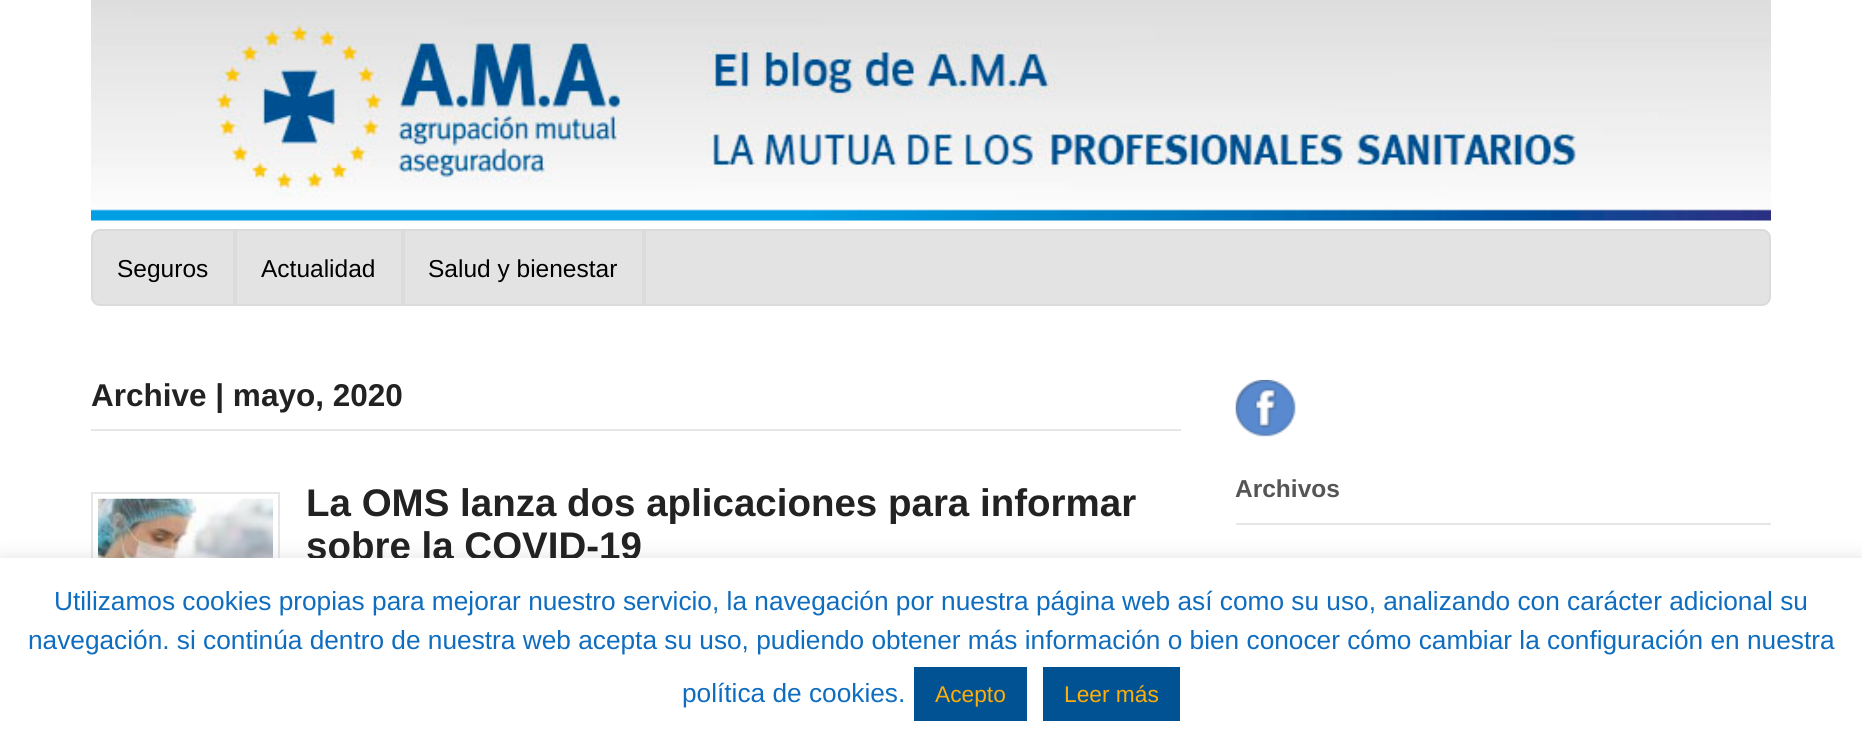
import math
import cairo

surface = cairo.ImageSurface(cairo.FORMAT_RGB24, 1862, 741)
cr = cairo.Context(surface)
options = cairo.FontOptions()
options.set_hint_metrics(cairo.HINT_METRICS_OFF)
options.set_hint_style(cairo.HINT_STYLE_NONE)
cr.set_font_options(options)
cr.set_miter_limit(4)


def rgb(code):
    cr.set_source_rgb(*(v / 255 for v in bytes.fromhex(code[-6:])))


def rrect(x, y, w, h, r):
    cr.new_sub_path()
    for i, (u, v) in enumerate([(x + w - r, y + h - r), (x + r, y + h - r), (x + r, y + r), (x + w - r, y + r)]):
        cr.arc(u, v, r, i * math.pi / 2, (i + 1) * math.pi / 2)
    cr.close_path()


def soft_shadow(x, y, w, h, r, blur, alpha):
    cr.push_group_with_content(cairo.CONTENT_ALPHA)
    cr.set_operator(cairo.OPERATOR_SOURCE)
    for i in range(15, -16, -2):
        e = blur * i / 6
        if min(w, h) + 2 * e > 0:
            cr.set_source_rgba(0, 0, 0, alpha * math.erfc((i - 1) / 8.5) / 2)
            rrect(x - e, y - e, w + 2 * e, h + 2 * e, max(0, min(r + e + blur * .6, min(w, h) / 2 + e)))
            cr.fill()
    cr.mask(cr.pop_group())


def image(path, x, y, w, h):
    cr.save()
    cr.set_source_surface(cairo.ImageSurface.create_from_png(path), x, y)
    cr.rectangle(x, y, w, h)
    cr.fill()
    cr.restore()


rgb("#ffffff")
cr.paint()
image("img/1.png", 91, 0, 1680, 221)
rgb("#e3e3e3")
rrect(92, 230, 1678, 75, 8)
cr.fill_preserve()
rgb("#dbdbdb")
cr.stroke()
for x, y, w, h, color in [
    (233, 231, 4, 74, "#dbdbdb"),
    (401, 231, 4, 74, "#dbdbdb"),
    (642, 231, 4, 74, "#dbdbdb"),
    (91, 429, 1090, 2, "#e6e6e6"),
]:
    rgb(color)
    cr.rectangle(x, y, w, h)
    cr.fill()
cr.rectangle(92, 493, 187, 187)
cr.stroke()
image("img/2.png", 98, 498, 175, 60)
image("img/3.png", 1235, 379, 61, 58)
cr.rectangle(1236, 523, 535, 2)
cr.fill()
rgb("#acabab")
soft_shadow(0, 557, 1862, 183, 0, 9, 0.3)
cr.select_font_face("Liberation Sans")
cr.set_font_size(24.5)
rgb("#000000")
for x, y, s in [
    (117, 277, "Seguros"),
    (261, 277, "Actualidad"),
    (428, 277, "Salud y bienestar"),
]:
    cr.move_to(x, y)
    cr.show_text(s)
cr.select_font_face("Liberation Sans", cairo.FONT_SLANT_NORMAL, cairo.FONT_WEIGHT_BOLD)
cr.set_font_size(31.5)
rgb("#222222")
cr.move_to(91, 406)
cr.show_text("Archive | mayo, 2020")
cr.set_font_size(38.5)
cr.move_to(306, 516)
cr.show_text("La OMS lanza dos aplicaciones para informar")
cr.move_to(306, 559)
cr.show_text("sobre la COVID-19")
cr.set_font_size(24.5)
rgb("#555555")
cr.move_to(1235, 497)
cr.show_text("Archivos")
rgb("#ffffff")
cr.rectangle(0, 558, 1862, 183)
cr.fill()
cr.select_font_face("Liberation Sans")
cr.set_font_size(26.25)
rgb("#0f6dbf")
for x, y, s in [
    (54, 610, "Utilizamos cookies propias para mejorar nuestro servicio, la navegación por nuestra página web así como su uso, analizando con carácter adicional su"),
    (28, 649, "navegación. si continúa dentro de nuestra web acepta su uso, pudiendo obtener más información o bien conocer cómo cambiar la configuración en nuestra"),
    (682, 702, "política de cookies."),
]:
    cr.move_to(x, y)
    cr.show_text(s)
rgb("#005292")
cr.rectangle(914, 667, 113, 54)
cr.fill()
cr.set_font_size(22.75)
rgb("#ffad09")
cr.move_to(935, 702)
cr.show_text("Acepto")
rgb("#005292")
cr.rectangle(1043, 667, 137, 54)
cr.fill()
rgb("#ffad09")
cr.move_to(1064, 702)
cr.show_text("Leer más")
surface.write_to_png("page.png")
